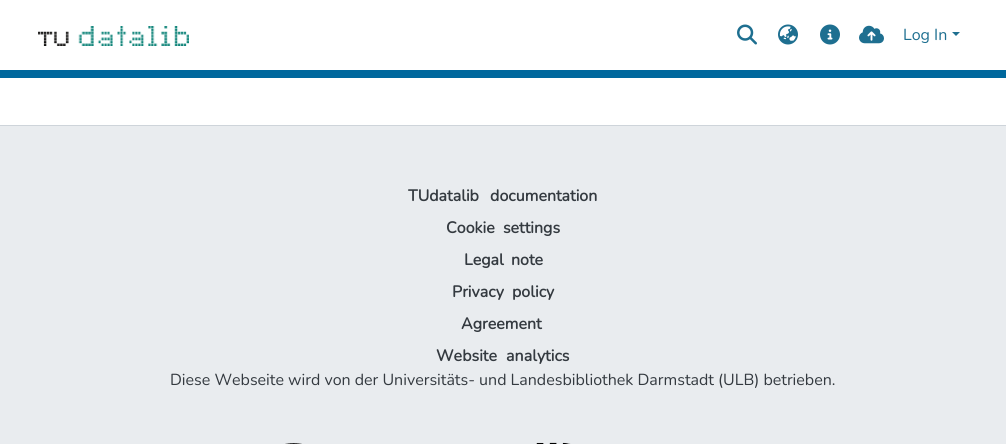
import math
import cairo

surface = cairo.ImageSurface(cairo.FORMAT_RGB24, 1006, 444)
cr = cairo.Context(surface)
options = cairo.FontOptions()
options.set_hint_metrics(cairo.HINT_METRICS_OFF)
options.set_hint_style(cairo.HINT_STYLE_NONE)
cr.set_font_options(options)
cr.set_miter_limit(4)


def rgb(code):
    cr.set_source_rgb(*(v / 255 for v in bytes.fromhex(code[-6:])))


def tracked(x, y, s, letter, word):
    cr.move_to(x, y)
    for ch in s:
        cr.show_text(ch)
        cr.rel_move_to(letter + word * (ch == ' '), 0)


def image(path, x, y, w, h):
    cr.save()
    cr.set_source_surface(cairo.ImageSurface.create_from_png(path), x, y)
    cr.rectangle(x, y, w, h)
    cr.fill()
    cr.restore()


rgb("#ffffff")
cr.paint()
rgb("#00689d")
cr.rectangle(0, 70, 1006, 8)
cr.fill()
image("img/1.png", 38, 26, 151, 20)
image("img/2.png", 737, 24, 20, 21)
image("img/3.png", 778, 24, 20, 21)
image("img/4.png", 820, 24, 20, 21)
image("img/5.png", 859, 25, 25, 19)
rgb("#1e6f90")
cr.new_path()
cr.move_to(952, 32)
cr.line_to(960, 32)
cr.line_to(956, 36)
cr.close_path()
cr.fill()
rgb("#e9ecef")
cr.rectangle(0, 126, 1006, 318)
cr.fill()
rgb("#ced4da")
cr.rectangle(0, 125, 1006, 1)
cr.fill()
image("img/6.png", 285, 443, 17, 1)
image("img/7.png", 536, 442, 35, 2)
cr.select_font_face("Nunito")
cr.set_font_size(16)
rgb("#1e6f90")
cr.move_to(903, 40)
cr.show_text("Log In")
cr.select_font_face("Nunito", cairo.FONT_SLANT_NORMAL, cairo.FONT_WEIGHT_BOLD)
rgb("#343a40")
tracked(408, 201, "TUdatalib documentation", 0, 7)
tracked(446, 233, "Cookie settings", 0, 4)
tracked(464, 265, "Legal note", 0, 3)
tracked(452, 297, "Privacy policy", 0, 4)
cr.move_to(461, 329)
cr.show_text("Agreement")
tracked(436, 361, "Website analytics", 0, 5)
cr.select_font_face("Nunito")
cr.move_to(170, 385)
cr.show_text("Diese Webseite wird von der Universitäts- und Landesbibliothek Darmstadt (ULB) betrieben.")
surface.write_to_png("page.png")
